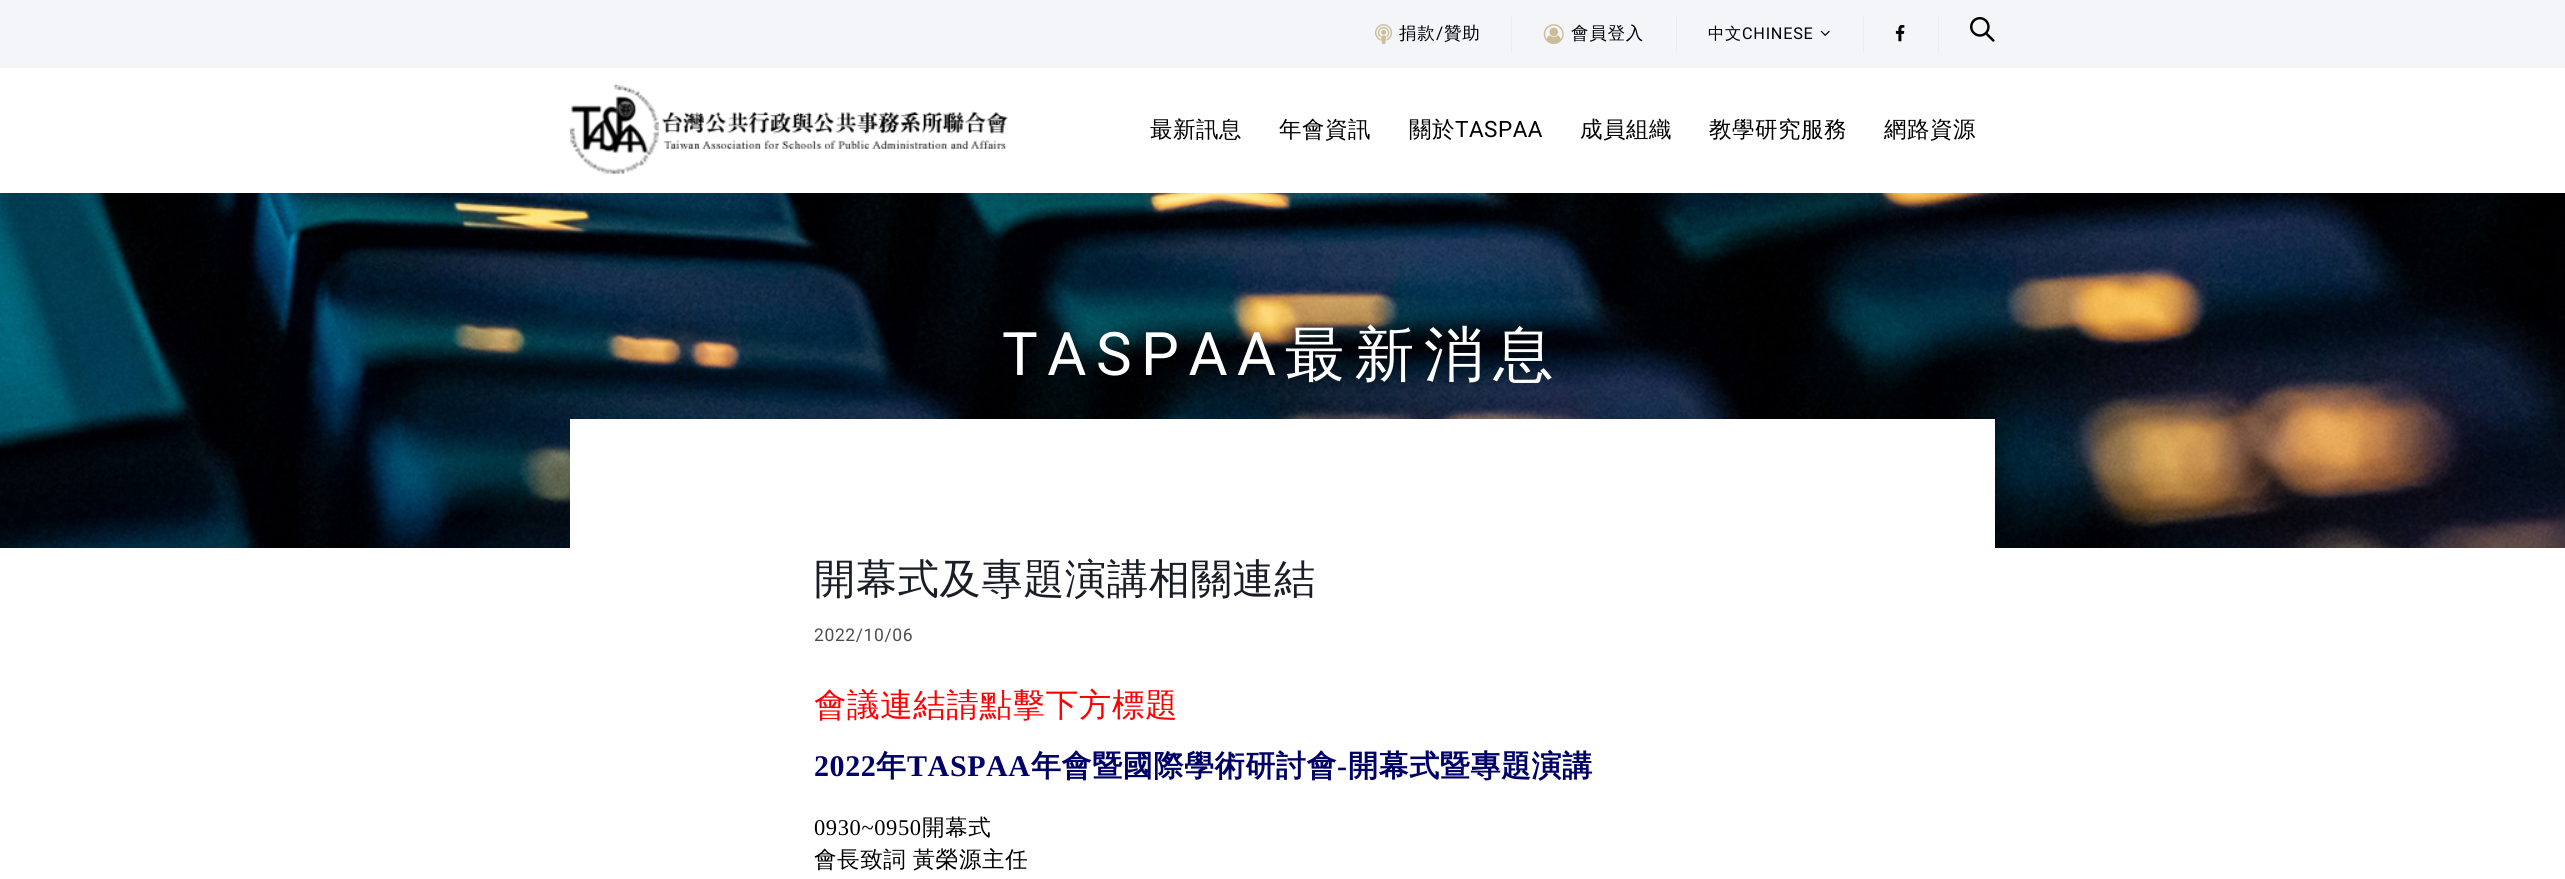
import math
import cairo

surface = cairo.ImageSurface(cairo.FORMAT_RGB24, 2565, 879)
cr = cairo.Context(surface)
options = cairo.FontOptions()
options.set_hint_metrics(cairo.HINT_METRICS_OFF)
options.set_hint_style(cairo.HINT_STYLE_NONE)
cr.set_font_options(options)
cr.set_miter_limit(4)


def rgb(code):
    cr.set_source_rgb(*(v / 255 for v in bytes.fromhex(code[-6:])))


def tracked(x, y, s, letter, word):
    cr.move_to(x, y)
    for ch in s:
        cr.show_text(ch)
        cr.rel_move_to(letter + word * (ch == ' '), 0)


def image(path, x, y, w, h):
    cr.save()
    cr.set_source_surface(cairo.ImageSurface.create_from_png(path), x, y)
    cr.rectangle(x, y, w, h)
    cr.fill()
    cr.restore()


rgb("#ffffff")
cr.paint()
rgb("#f4f5f8")
cr.rectangle(0, 0, 2565, 68)
cr.fill()
image("img/1.png", 1375, 24, 18, 21)
rgb("#ededed")
cr.rectangle(1511, 15, 1, 38)
cr.fill()
image("img/2.png", 1543, 24, 21, 21)
cr.rectangle(1676, 15, 1, 38)
cr.fill()
image("img/3.png", 1820, 30, 10, 6)
cr.rectangle(1863, 15, 1, 38)
cr.fill()
image("img/4.png", 1895, 25, 10, 17)
cr.rectangle(1938, 15, 1, 38)
cr.fill()
image("img/5.png", 1970, 17, 25, 25)
image("img/6.png", 570, 84, 438, 90)
image("img/7.png", 0, 193, 2565, 355)
rgb("#ffffff")
cr.rectangle(570, 419, 1425, 129)
cr.fill()
cr.select_font_face("WenQuanYi Zen Hei Medium")
cr.set_font_size(17.5)
rgb("#000000")
tracked(1399, 39, "捐款", 0.75, 0)
cr.select_font_face("Roboto")
tracked(1436, 39, "/", 0.75, 0)
cr.select_font_face("WenQuanYi Zen Hei Medium")
tracked(1444, 39, "贊助", 0.75, 0)
tracked(1571, 39, "會員登入", 0.75, 0)
cr.set_font_size(16.25)
tracked(1708, 39, "中文", 0.75, 0)
cr.select_font_face("Roboto")
tracked(1742, 39, "CHINESE", 0.75, 0)
cr.select_font_face("WenQuanYi Zen Hei Medium")
cr.set_font_size(22.5)
for x, y, s in [
    (1150, 137, "最新訊息"),
    (1279, 137, "年會資訊"),
    (1409, 137, "關於"),
]:
    tracked(x, y, s, 0.5, 0)
cr.select_font_face("Roboto")
tracked(1455, 137, "TASPAA", 0.5, 0)
cr.select_font_face("WenQuanYi Zen Hei Medium")
for x, y, s in [
    (1580, 137, "成員組織"),
    (1709, 137, "教學研究服務"),
    (1884, 137, "網路資源"),
]:
    tracked(x, y, s, 0.5, 0)
cr.select_font_face("Roboto")
cr.set_font_size(60)
rgb("#ffffff")
tracked(1002, 375, "TASPAA", 9.5, 0)
cr.select_font_face("WenQuanYi Zen Hei Medium")
tracked(1285, 375, "最新消息", 9.5, 0)
cr.set_font_size(41.25)
rgb("#1a1c26")
tracked(814, 593, "開幕式及專題演講相關連結", 0.6, 0)
cr.select_font_face("Roboto")
cr.set_font_size(17.5)
rgb("#4d4d4d")
tracked(814, 641, "2022/10/06", 0.6, 0)
cr.select_font_face("WenQuanYi Zen Hei Medium")
cr.set_font_size(32.5)
rgb("#ff0000")
tracked(814, 716, "會議連結請點擊下方標題", 0.6, 0)
cr.select_font_face("Liberation Serif", cairo.FONT_SLANT_NORMAL, cairo.FONT_WEIGHT_BOLD)
cr.set_font_size(30)
rgb("#000066")
tracked(814, 776, "2022", 0.6, 0)
cr.select_font_face("WenQuanYi Zen Hei", cairo.FONT_SLANT_NORMAL, cairo.FONT_WEIGHT_BOLD)
tracked(876, 776, "年", 0.6, 0)
cr.select_font_face("Liberation Serif", cairo.FONT_SLANT_NORMAL, cairo.FONT_WEIGHT_BOLD)
tracked(907, 776, "TASPAA", 0.6, 0)
cr.select_font_face("WenQuanYi Zen Hei", cairo.FONT_SLANT_NORMAL, cairo.FONT_WEIGHT_BOLD)
tracked(1031, 776, "年會暨國際學術研討會", 0.6, 0)
cr.select_font_face("Liberation Serif", cairo.FONT_SLANT_NORMAL, cairo.FONT_WEIGHT_BOLD)
tracked(1337, 776, "-", 0.6, 0)
cr.select_font_face("WenQuanYi Zen Hei", cairo.FONT_SLANT_NORMAL, cairo.FONT_WEIGHT_BOLD)
tracked(1348, 776, "開幕式暨專題演講", 0.6, 0)
cr.select_font_face("Liberation Serif")
cr.set_font_size(22.5)
rgb("#000000")
tracked(814, 835, "0930~0950", 0.6, 0)
cr.select_font_face("WenQuanYi Zen Hei Medium")
tracked(922, 835, "開幕式", 0.6, 0)
tracked(814, 867, "會長致詞 黃榮源主任", 0.6, -1)
surface.write_to_png("page.png")
